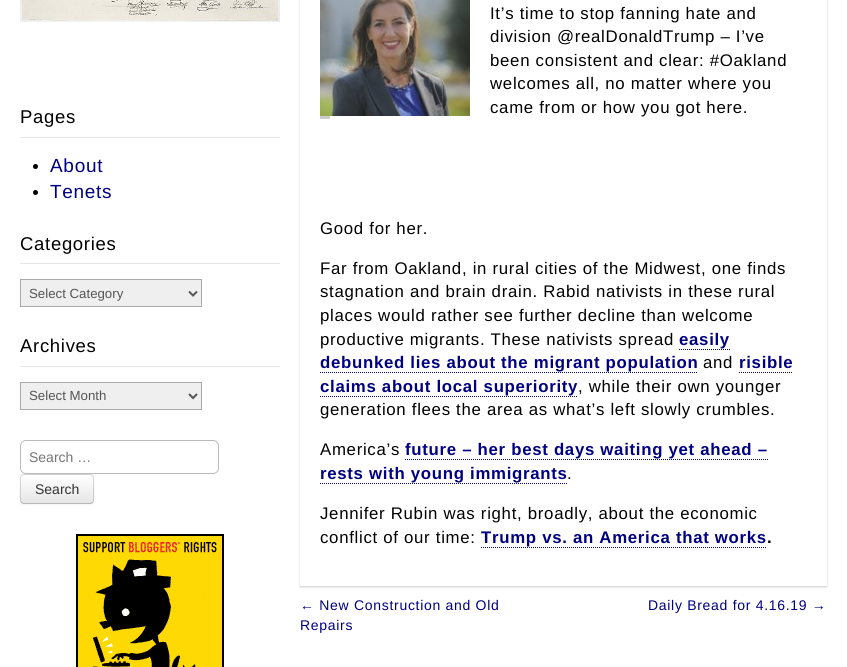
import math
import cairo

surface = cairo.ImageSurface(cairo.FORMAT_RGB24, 847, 667)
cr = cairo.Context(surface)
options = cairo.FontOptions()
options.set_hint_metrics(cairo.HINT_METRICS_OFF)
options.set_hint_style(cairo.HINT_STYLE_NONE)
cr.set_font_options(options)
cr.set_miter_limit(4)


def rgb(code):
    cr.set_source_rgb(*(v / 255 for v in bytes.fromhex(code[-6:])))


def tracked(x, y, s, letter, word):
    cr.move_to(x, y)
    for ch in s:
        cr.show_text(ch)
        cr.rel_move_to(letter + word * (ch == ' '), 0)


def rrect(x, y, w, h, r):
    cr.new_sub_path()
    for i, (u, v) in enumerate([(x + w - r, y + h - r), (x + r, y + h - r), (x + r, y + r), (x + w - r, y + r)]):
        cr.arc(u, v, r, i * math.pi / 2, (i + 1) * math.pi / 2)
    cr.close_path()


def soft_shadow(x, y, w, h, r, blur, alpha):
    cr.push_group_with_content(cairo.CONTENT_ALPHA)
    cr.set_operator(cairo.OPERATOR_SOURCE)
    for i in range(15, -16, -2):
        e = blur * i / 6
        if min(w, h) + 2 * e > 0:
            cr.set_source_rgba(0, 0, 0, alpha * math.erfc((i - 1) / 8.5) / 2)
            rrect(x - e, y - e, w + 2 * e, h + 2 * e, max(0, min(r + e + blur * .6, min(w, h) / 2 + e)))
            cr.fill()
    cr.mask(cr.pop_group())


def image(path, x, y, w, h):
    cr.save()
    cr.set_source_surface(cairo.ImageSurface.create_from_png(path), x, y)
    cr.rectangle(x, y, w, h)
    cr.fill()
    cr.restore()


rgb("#ffffff")
cr.paint()
image("img/1.png", 20, 0, 260, 22)
rgb("#e6e6e6")
cr.rectangle(20, 137, 260, 1)
cr.fill()
rgb("#000000")
cr.arc(35.5, 166.5, 2.5, 0, 2 * math.pi)
cr.fill()
cr.arc(35.5, 192.5, 2.5, 0, 2 * math.pi)
cr.fill()
rgb("#e6e6e6")
cr.rectangle(20, 263, 260, 1)
cr.fill()
rgb("#efefef")
cr.rectangle(20.5, 279.5, 181, 27)
cr.fill_preserve()
rgb("#aaaaaa")
cr.set_line_width(1)
cr.stroke()
cr.new_path()
cr.move_to(189, 291.5)
cr.line_to(193, 295.5)
cr.line_to(197, 291.5)
rgb("#555555")
cr.set_line_width(2)
cr.stroke()
rgb("#e6e6e6")
cr.rectangle(20, 366, 260, 1)
cr.fill()
rgb("#efefef")
cr.rectangle(20.5, 382.5, 181, 27)
cr.fill_preserve()
rgb("#aaaaaa")
cr.set_line_width(1)
cr.stroke()
cr.new_path()
cr.move_to(189, 394)
cr.line_to(193, 398)
cr.line_to(197, 394)
rgb("#555555")
cr.set_line_width(2)
cr.stroke()
rrect(20.5, 440.5, 198, 33, 5.5)
rgb("#bbbbbb")
cr.set_line_width(1)
cr.stroke()
rgb("#000000")
soft_shadow(20, 475, 74, 30, 4, 1, 0.05)
rgb("#f5f5f5")
rrect(20, 474, 74, 30, 4)
cr.fill()
cr.save()
rrect(20, 474, 74, 30, 4)
cr.clip()
gradient = cairo.LinearGradient(57, 475, 57, 503)
gradient.add_color_stop_rgba(0, 1, 1, 1, 1)
gradient.add_color_stop_rgba(1, 0.902, 0.902, 0.902, 1)
cr.set_source(gradient)
cr.rectangle(20, 475, 74, 28)
cr.fill()
cr.restore()
cr.new_path()
cr.move_to(92.5, 502.5)
cr.line_to(90.5, 503.5)
cr.line_to(23.5, 503.5)
cr.line_to(21.5, 502.5)
cr.set_source_rgba(0, 0, 0, 0.25)
cr.stroke()
cr.new_path()
cr.move_to(21.5, 502.5)
cr.curve_to(19.5, 500.5, 20.5, 492, 20.5, 489)
cr.curve_to(20.5, 472.5, 18, 474.5, 35, 474.5)
cr.line_to(79, 474.5)
cr.curve_to(96, 474.5, 93.5, 472.5, 93.5, 489)
cr.curve_to(93.5, 492, 94.5, 500.5, 92.5, 502.5)
cr.set_source_rgba(0, 0, 0, 0.15)
cr.stroke()
image("img/2.png", 76, 534, 148, 133)
cr.save()
cr.set_fill_rule(cairo.FILL_RULE_EVEN_ODD)
cr.new_path()
cr.move_to(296, 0)
cr.line_to(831, 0)
cr.line_to(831, 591)
cr.line_to(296, 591)
cr.close_path()
cr.move_to(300, -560)
cr.line_to(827, -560)
cr.line_to(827, 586)
cr.line_to(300, 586)
cr.close_path()
cr.clip()
rgb("#000000")
soft_shadow(300, -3, 527, 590, 0, 1, 0.2)
cr.restore()
image("img/3.png", 320, 0, 150, 116)
rgb("#cccccc")
cr.rectangle(320, 116, 10, 3)
cr.fill()
cr.new_path()
cr.move_to(679, 349.5)
cr.line_to(730, 349.5)
rgb("#000080")
cr.set_dash([1, 1])
cr.stroke()
cr.new_path()
cr.move_to(320, 372.5)
cr.line_to(698, 372.5)
cr.stroke()
cr.new_path()
cr.move_to(739, 372.5)
cr.line_to(793, 372.5)
cr.stroke()
cr.new_path()
cr.move_to(320, 396.5)
cr.line_to(578, 396.5)
cr.stroke()
cr.new_path()
cr.move_to(405, 459.5)
cr.line_to(768, 459.5)
cr.stroke()
cr.new_path()
cr.move_to(320, 483.5)
cr.line_to(567, 483.5)
cr.stroke()
cr.new_path()
cr.move_to(481, 547.5)
cr.line_to(767, 547.5)
cr.stroke()
cr.select_font_face("Liberation Sans")
cr.set_font_size(18.5)
rgb("#000000")
tracked(20, 123, "Pages", 0.7, 0)
cr.set_font_size(19)
rgb("#000080")
tracked(50, 172, "About", 0.7, 0)
tracked(50, 198, "Tenets", 0.7, 0)
cr.set_font_size(18.5)
rgb("#000000")
tracked(20, 250, "Categories", 0.7, 0)
cr.set_font_size(13.25)
rgb("#555555")
cr.move_to(29, 298)
cr.show_text("Select Category")
cr.set_font_size(18.5)
rgb("#000000")
tracked(20, 352, "Archives", 0.7, 0)
cr.set_font_size(13.25)
rgb("#555555")
cr.move_to(29, 400)
cr.show_text("Select Month")
cr.set_font_size(14)
rgb("#757575")
cr.move_to(29, 462)
cr.show_text("Search …")
rgb("#333333")
cr.move_to(35, 494)
cr.show_text("Search")
cr.set_font_size(16.8)
rgb("#000000")
for x, y, s in [
    (490, 19, "It’s time to stop fanning hate and"),
    (490, 42, "division @realDonaldTrump – I’ve"),
    (490, 66, "been consistent and clear: #Oakland"),
    (490, 89, "welcomes all, no matter where you"),
    (490, 113, "came from or how you got here."),
    (320, 234, "Good for her."),
    (320, 274, "Far from Oakland, in rural cities of the Midwest, one finds"),
    (320, 297, "stagnation and brain drain. Rabid nativists in these rural"),
    (320, 321, "places would rather see further decline than welcome"),
    (320, 345, "productive migrants. These nativists spread"),
]:
    tracked(x, y, s, 0.7, 0)
cr.select_font_face("Liberation Sans", cairo.FONT_SLANT_NORMAL, cairo.FONT_WEIGHT_BOLD)
rgb("#000080")
tracked(679, 345, "easily", 0.7, 0)
tracked(320, 368, "debunked lies about the migrant population", 0.7, 0)
cr.select_font_face("Liberation Sans")
rgb("#000000")
tracked(703, 368, "and", 0.7, 0)
cr.select_font_face("Liberation Sans", cairo.FONT_SLANT_NORMAL, cairo.FONT_WEIGHT_BOLD)
rgb("#000080")
tracked(739, 368, "risible", 0.7, 0)
tracked(320, 392, "claims about local superiority", 0.7, 0)
cr.select_font_face("Liberation Sans")
rgb("#000000")
for x, y, s in [
    (578, 392, ", while their own younger"),
    (320, 415, "generation flees the area as what’s left slowly crumbles."),
    (320, 455, "America’s"),
]:
    tracked(x, y, s, 0.7, 0)
cr.select_font_face("Liberation Sans", cairo.FONT_SLANT_NORMAL, cairo.FONT_WEIGHT_BOLD)
rgb("#000080")
tracked(405, 455, "future – her best days waiting yet ahead –", 0.7, 0)
tracked(320, 479, "rests with young immigrants", 0.7, 0)
cr.select_font_face("Liberation Sans")
rgb("#000000")
for x, y, s in [
    (567, 479, "."),
    (320, 519, "Jennifer Rubin was right, broadly, about the economic"),
    (320, 543, "conflict of our time:"),
]:
    tracked(x, y, s, 0.7, 0)
cr.select_font_face("Liberation Sans", cairo.FONT_SLANT_NORMAL, cairo.FONT_WEIGHT_BOLD)
rgb("#000080")
tracked(481, 543, "Trump vs. an America that works", 0.7, 0)
rgb("#000000")
tracked(767, 543, ".", 0.7, 0)
cr.select_font_face("Liberation Sans")
cr.set_font_size(14)
rgb("#000080")
for x, y, s in [
    (300, 610, "← New Construction and Old"),
    (300, 630, "Repairs"),
    (648, 610, "Daily Bread for 4.16.19 →"),
]:
    tracked(x, y, s, 0.7, 0)
surface.write_to_png("page.png")
